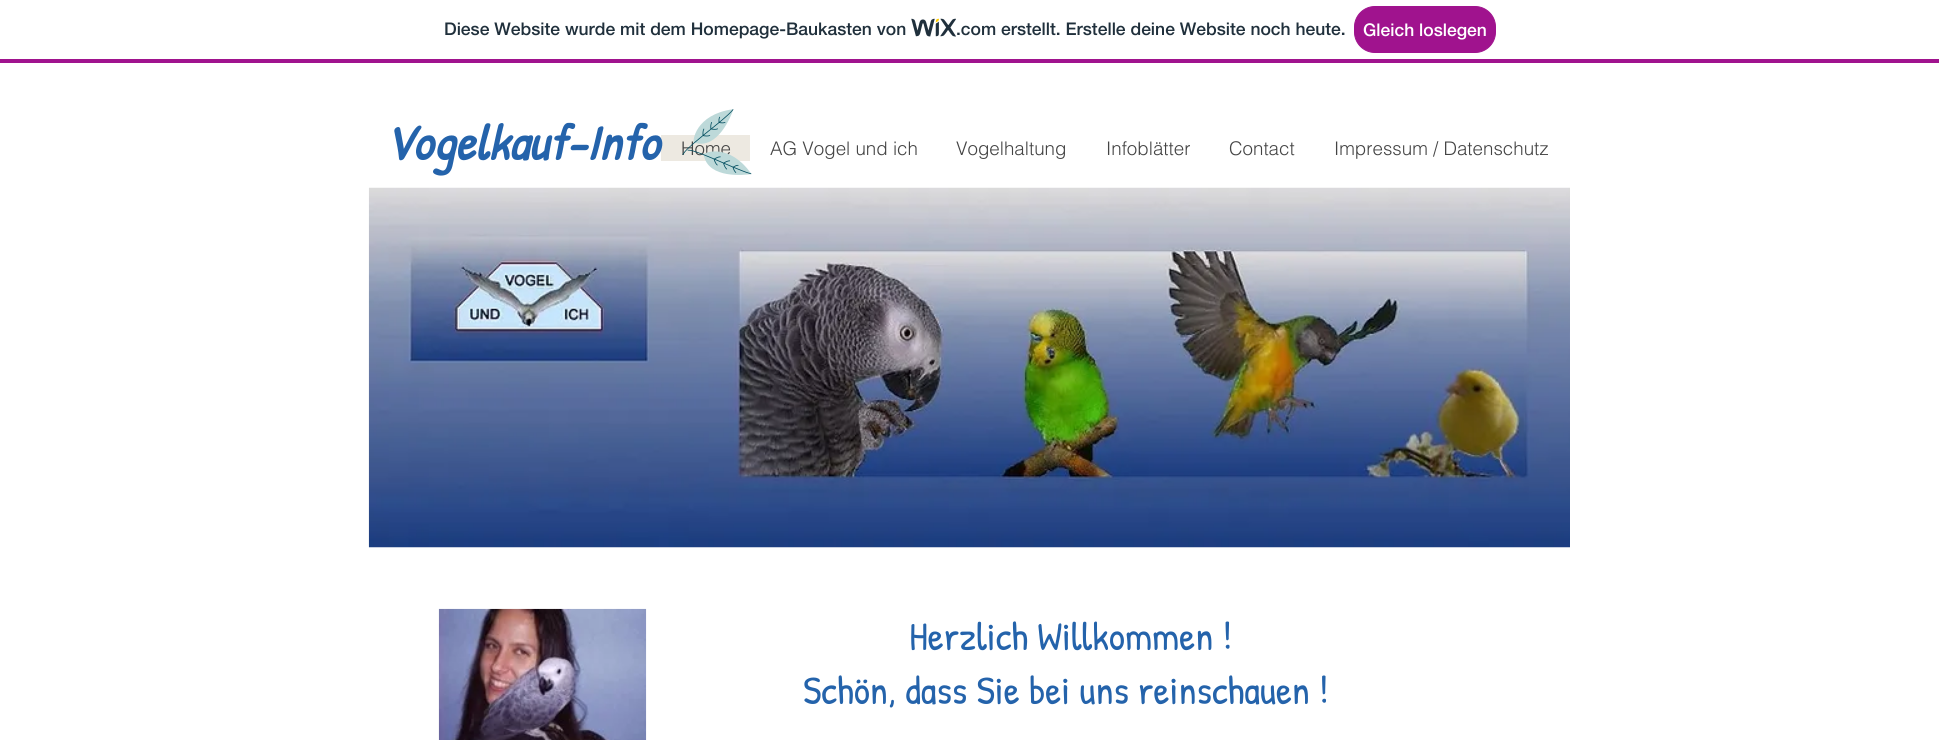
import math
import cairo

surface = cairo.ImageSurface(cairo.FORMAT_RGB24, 1939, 740)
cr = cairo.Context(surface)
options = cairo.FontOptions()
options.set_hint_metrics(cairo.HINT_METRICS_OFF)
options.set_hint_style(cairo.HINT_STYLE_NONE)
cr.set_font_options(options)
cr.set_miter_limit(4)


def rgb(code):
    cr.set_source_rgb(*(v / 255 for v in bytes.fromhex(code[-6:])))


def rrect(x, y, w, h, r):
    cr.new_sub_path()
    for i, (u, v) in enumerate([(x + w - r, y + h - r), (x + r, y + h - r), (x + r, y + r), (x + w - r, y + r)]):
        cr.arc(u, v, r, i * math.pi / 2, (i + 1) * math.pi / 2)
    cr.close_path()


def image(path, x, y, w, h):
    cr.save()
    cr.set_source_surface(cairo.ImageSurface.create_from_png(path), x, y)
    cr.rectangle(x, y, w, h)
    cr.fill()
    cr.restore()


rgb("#ffffff")
cr.paint()
rgb("#a0138e")
cr.rectangle(0, 59, 1939, 4)
cr.fill()
image("img/1.png", 911, 18, 45, 19)
rrect(1354.5, 6.5, 141, 46, 20.5)
cr.fill_preserve()
cr.set_line_width(1)
cr.stroke()
rgb("#ede9e1")
cr.rectangle(661, 135, 89, 26)
cr.fill()
image("img/3.png", 368, 187, 1202, 361)
image("img/4.png", 438, 608, 209, 132)
cr.select_font_face("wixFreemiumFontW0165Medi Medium")
cr.set_font_size(17.5)
rgb("#20303c")
cr.move_to(444, 35)
cr.show_text("Diese Website wurde mit dem Homepage-Baukasten von")
cr.move_to(956, 35)
cr.show_text(".com erstellt. Erstelle deine Website noch heute.")
rgb("#ffffff")
cr.move_to(1363, 36)
cr.show_text("Gleich loslegen")
cr.select_font_face("Patrick Hand", cairo.FONT_SLANT_ITALIC, cairo.FONT_WEIGHT_BOLD)
cr.set_font_size(50)
rgb("#2463ab")
cr.move_to(384, 160)
cr.show_text("Vogelkauf-Info")
cr.select_font_face("helvetica Light")
cr.set_font_size(18.75)
rgb("#444444")
cr.move_to(681, 155)
cr.show_text("Home")
image("img/2.png", 682, 109, 70, 66)
for x, y, s in [
    (770, 155, "AG Vogel und ich"),
    (956, 155, "Vogelhaltung"),
    (1106, 155, "Infoblätter"),
    (1229, 155, "Contact"),
    (1334, 155, "Impressum / Datenschutz"),
]:
    cr.move_to(x, y)
    cr.show_text(s)
cr.select_font_face("Patrick Hand")
cr.set_font_size(40)
rgb("#2463ab")
cr.move_to(909, 650)
cr.show_text("Herzlich Willkommen !")
cr.move_to(803, 704)
cr.show_text("Schön, dass Sie bei uns reinschauen !")
surface.write_to_png("page.png")
